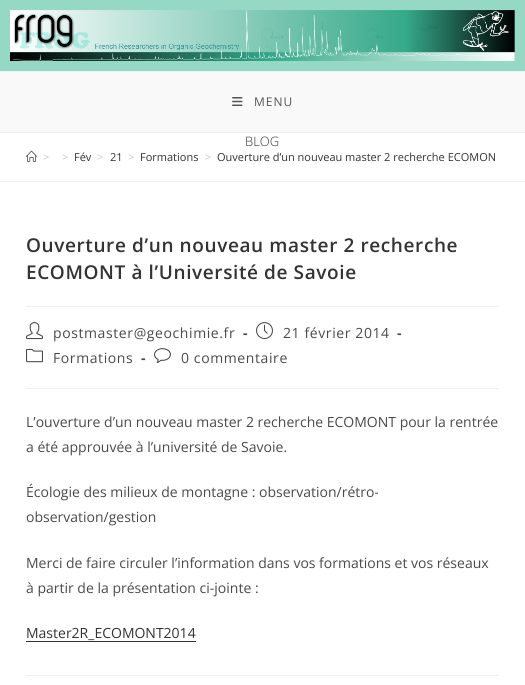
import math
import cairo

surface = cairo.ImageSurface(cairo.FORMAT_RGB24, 525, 685)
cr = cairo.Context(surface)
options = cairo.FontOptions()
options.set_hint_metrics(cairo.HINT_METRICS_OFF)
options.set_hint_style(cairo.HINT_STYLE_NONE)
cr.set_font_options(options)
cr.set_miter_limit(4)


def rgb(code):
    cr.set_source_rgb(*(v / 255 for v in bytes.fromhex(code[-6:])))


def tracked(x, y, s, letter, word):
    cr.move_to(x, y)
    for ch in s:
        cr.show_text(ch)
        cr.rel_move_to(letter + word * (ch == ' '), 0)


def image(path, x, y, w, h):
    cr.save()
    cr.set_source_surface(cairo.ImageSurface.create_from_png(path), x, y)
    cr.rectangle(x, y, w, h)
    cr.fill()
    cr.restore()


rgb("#ffffff")
cr.paint()
rgb("#95d8c3")
cr.rectangle(0, 0, 525, 71)
cr.fill()
rgb("#f1f1f1")
cr.rectangle(0, 71, 525, 1)
cr.fill()
image("img/1.png", 10, 10, 505, 51)
cr.rectangle(0, 132, 525, 1)
cr.fill()
rgb("#f9f9f9")
cr.rectangle(0, 72, 525, 60)
cr.fill()
image("img/2.png", 232, 97, 11, 9)
rgb("#f1f1f1")
cr.rectangle(0, 181, 525, 1)
cr.fill()
image("img/3.png", 26, 150, 11, 12)
cr.rectangle(26, 306, 473, 1)
cr.fill()
cr.rectangle(26, 388, 473, 1)
cr.fill()
image("img/4.png", 26, 322, 17, 18)
image("img/5.png", 256, 322, 17, 18)
image("img/6.png", 26, 348, 17, 15)
image("img/7.png", 154, 348, 17, 15)
rgb("#333333")
cr.rectangle(26, 641, 170, 1)
cr.fill()
rgb("#f1f1f1")
cr.rectangle(26, 675, 473, 1)
cr.fill()
cr.select_font_face("Open Sans")
cr.set_font_size(12)
rgb("#555555")
tracked(254, 106, "MENU", 1, 0)
cr.select_font_face("Open Sans Light")
cr.set_font_size(13)
rgb("#333333")
cr.move_to(245, 146)
cr.show_text("BLOG")
cr.select_font_face("Open Sans")
cr.set_font_size(11)
rgb("#c6c6c6")
cr.move_to(43, 161)
cr.show_text(">")
cr.move_to(62, 161)
cr.show_text(">")
rgb("#333333")
cr.move_to(74, 161)
cr.show_text("Fév")
rgb("#c6c6c6")
cr.move_to(97, 161)
cr.show_text(">")
rgb("#333333")
cr.move_to(110, 161)
cr.show_text("21")
rgb("#c6c6c6")
cr.move_to(128, 161)
cr.show_text(">")
rgb("#333333")
cr.move_to(140, 161)
cr.show_text("Formations")
rgb("#c6c6c6")
cr.move_to(205, 161)
cr.show_text(">")
rgb("#333333")
cr.move_to(217, 161)
cr.show_text("Ouverture d’un nouveau master 2 recherche ECOMON")
cr.select_font_face("Open Sans SemiBold")
cr.set_font_size(19)
tracked(26, 252, "Ouverture d’un nouveau master 2 recherche", 0.6, 0)
tracked(26, 279, "ECOMONT à l’Université de Savoie", 0.6, 0)
cr.select_font_face("Open Sans")
cr.set_font_size(14)
rgb("#4a4a4a")
tracked(53, 338, "postmaster@geochimie.fr", 0.6, 0)
cr.select_font_face("Open Sans", cairo.FONT_SLANT_NORMAL, cairo.FONT_WEIGHT_BOLD)
tracked(243, 338, "-", 0.6, 0)
cr.select_font_face("Open Sans")
tracked(283, 338, "21 février 2014", 0.6, 0)
cr.select_font_face("Open Sans", cairo.FONT_SLANT_NORMAL, cairo.FONT_WEIGHT_BOLD)
tracked(397, 338, "-", 0.6, 0)
cr.select_font_face("Open Sans")
tracked(53, 363, "Formations", 0.6, 0)
cr.select_font_face("Open Sans", cairo.FONT_SLANT_NORMAL, cairo.FONT_WEIGHT_BOLD)
tracked(141, 363, "-", 0.6, 0)
cr.select_font_face("Open Sans")
tracked(181, 363, "0 commentaire", 0.6, 0)
for x, y, s in [
    (26, 427, "L’ouverture d’un nouveau master 2 recherche ECOMONT pour la rentrée"),
    (26, 452, "a été approuvée à l’université de Savoie."),
    (26, 497, "Écologie des milieux de montagne : observation/rétro-"),
    (26, 522, "observation/gestion"),
    (26, 568, "Merci de faire circuler l’information dans vos formations et vos réseaux"),
    (26, 593, "à partir de la présentation ci-jointe :"),
]:
    cr.move_to(x, y)
    cr.show_text(s)
rgb("#333333")
cr.move_to(26, 638)
cr.show_text("Master2R_ECOMONT2014")
surface.write_to_png("page.png")
